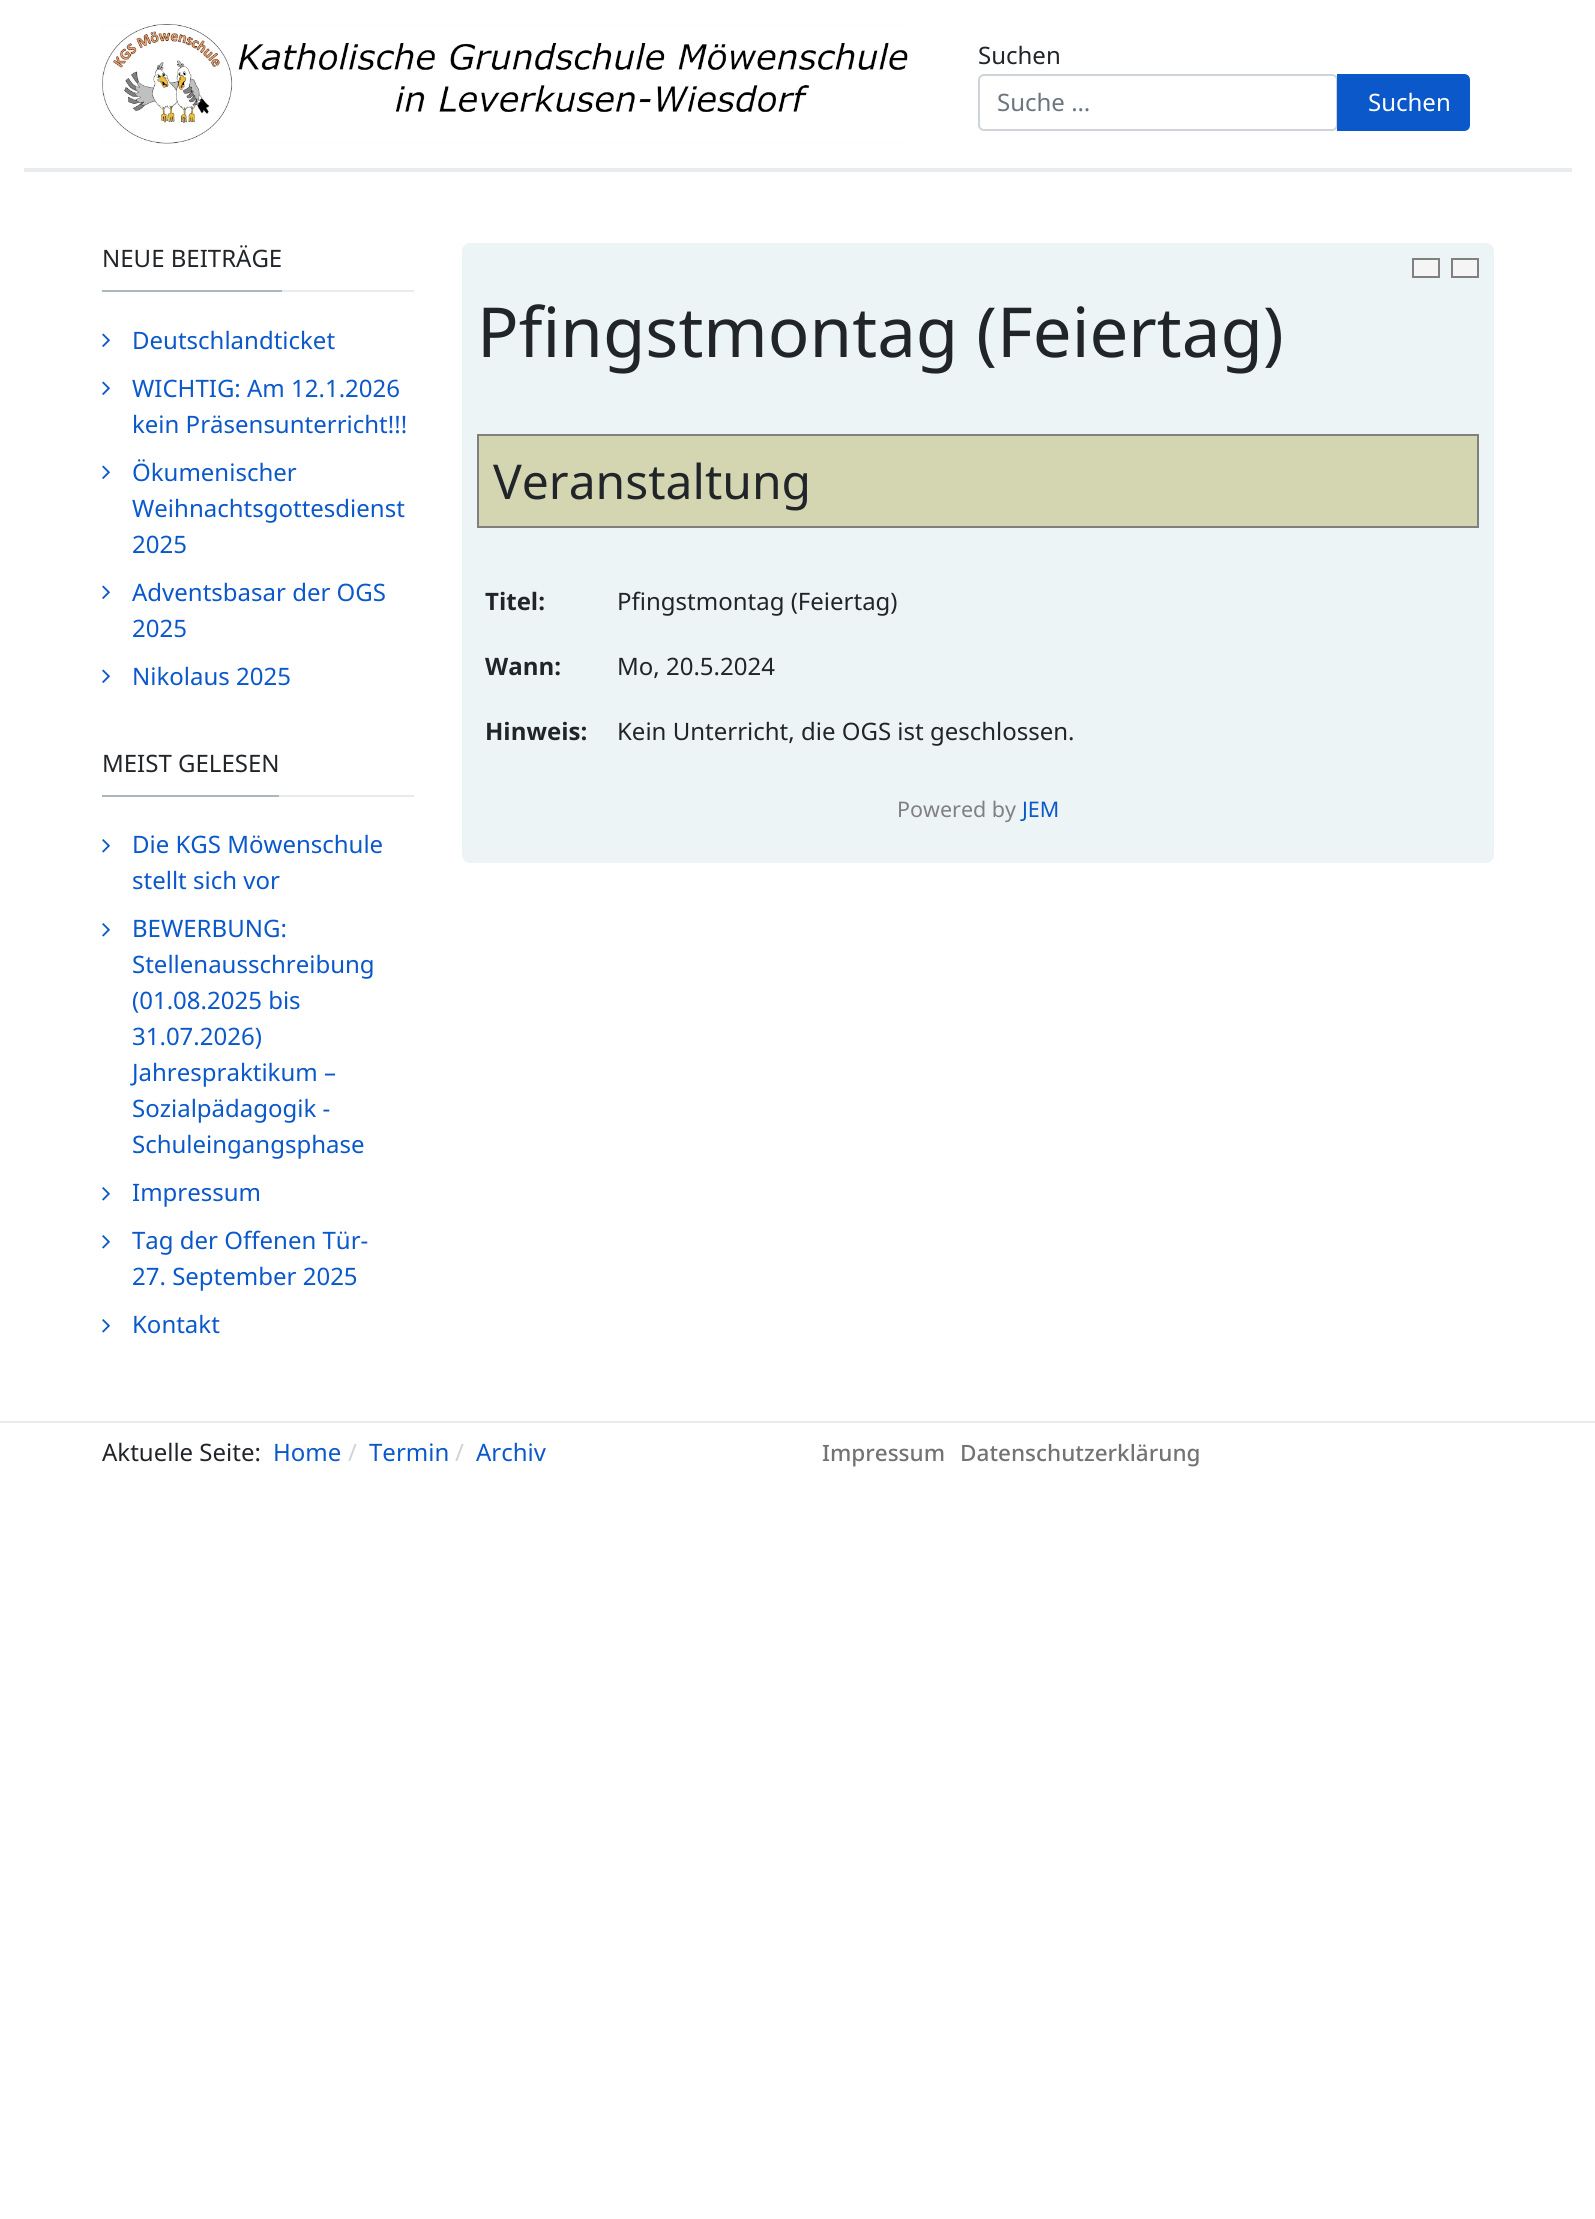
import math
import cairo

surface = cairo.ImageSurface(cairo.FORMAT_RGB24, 1595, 2219)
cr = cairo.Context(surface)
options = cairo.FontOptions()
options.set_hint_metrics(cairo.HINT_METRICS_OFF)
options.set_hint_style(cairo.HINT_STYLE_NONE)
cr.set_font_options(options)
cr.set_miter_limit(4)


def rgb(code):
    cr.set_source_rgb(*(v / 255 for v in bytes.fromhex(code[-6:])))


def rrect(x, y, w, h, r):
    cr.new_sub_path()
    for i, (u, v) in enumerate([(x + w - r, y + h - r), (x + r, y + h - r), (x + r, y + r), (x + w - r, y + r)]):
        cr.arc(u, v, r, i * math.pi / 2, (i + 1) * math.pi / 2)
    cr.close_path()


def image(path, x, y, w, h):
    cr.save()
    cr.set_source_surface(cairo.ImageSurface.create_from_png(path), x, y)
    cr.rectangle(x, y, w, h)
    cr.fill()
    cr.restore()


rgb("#ffffff")
cr.paint()
image("img/1.png", 102, 24, 806, 120)
rrect(979, 75, 358, 55, 5)
rgb("#ced4da")
cr.stroke()
rgb("#0a58ca")
cr.new_path()
cr.move_to(1338, 75)
cr.line_to(1464, 75)
cr.curve_to(1467, 75, 1469, 77, 1469, 80)
cr.line_to(1469, 125)
cr.curve_to(1469, 128, 1467, 130, 1464, 130)
cr.line_to(1338, 130)
cr.close_path()
cr.fill_preserve()
cr.stroke()
for x, y, w, h, color in [
    (24, 168, 1548, 4, "#e9ecef"),
    (282, 290, 132, 2, "#e9ecef"),
    (102, 290, 180, 2, "#adb5bd"),
]:
    rgb(color)
    cr.rectangle(x, y, w, h)
    cr.fill()
image("img/2.png", 102, 333, 8, 14)
image("img/2.png", 102, 381, 8, 14)
image("img/2.png", 102, 465, 8, 14)
image("img/2.png", 102, 585, 8, 14)
image("img/2.png", 102, 669, 8, 14)
rgb("#e9ecef")
cr.rectangle(279, 795, 135, 2)
cr.fill()
rgb("#adb5bd")
cr.rectangle(102, 795, 177, 2)
cr.fill()
image("img/3.png", 102, 839, 8, 14)
image("img/3.png", 102, 923, 8, 14)
image("img/3.png", 102, 1187, 8, 14)
image("img/3.png", 102, 1235, 8, 14)
image("img/3.png", 102, 1319, 8, 14)
rgb("#edf4f5")
rrect(462, 243, 1032, 620, 8)
cr.fill()
rgb("#f5f5f5")
cr.rectangle(1413, 259, 26, 18)
cr.fill_preserve()
rgb("#808080")
cr.stroke()
rgb("#f5f5f5")
cr.rectangle(1452, 259, 26, 18)
cr.fill_preserve()
rgb("#808080")
cr.stroke()
rgb("#d4d6b2")
cr.rectangle(478, 435, 1000, 92)
cr.fill_preserve()
rgb("#808080")
cr.stroke()
rgb("#e9ecef")
cr.rectangle(0, 1421, 1595, 2)
cr.fill()
cr.select_font_face("Noto Sans")
cr.set_font_size(24)
rgb("#212529")
cr.move_to(978, 64)
cr.show_text("Suchen")
rgb("#6c757d")
cr.move_to(997, 111)
cr.show_text("Suche …")
rgb("#ffffff")
cr.move_to(1368, 111)
cr.show_text("Suchen")
rgb("#212529")
cr.move_to(102, 267)
cr.show_text("NEUE BEITRÄGE")
rgb("#0a58ca")
for x, y, s in [
    (132, 349, "Deutschlandticket"),
    (132, 397, "WICHTIG: Am 12.1.2026"),
    (132, 433, "kein Präsensunterricht!!!"),
    (132, 481, "Ökumenischer"),
    (132, 517, "Weihnachtsgottesdienst"),
    (132, 553, "2025"),
    (132, 601, "Adventsbasar der OGS"),
    (132, 637, "2025"),
    (132, 685, "Nikolaus 2025"),
]:
    cr.move_to(x, y)
    cr.show_text(s)
rgb("#212529")
cr.move_to(102, 772)
cr.show_text("MEIST GELESEN")
rgb("#0a58ca")
for x, y, s in [
    (132, 853, "Die KGS Möwenschule"),
    (132, 889, "stellt sich vor"),
    (132, 937, "BEWERBUNG:"),
    (132, 973, "Stellenausschreibung"),
    (132, 1009, "(01.08.2025 bis"),
    (132, 1045, "31.07.2026)"),
    (132, 1081, "Jahrespraktikum –"),
    (132, 1117, "Sozialpädagogik -"),
    (132, 1153, "Schuleingangsphase"),
    (132, 1201, "Impressum"),
    (132, 1249, "Tag der Offenen Tür-"),
    (132, 1285, "27. September 2025"),
    (132, 1333, "Kontakt"),
]:
    cr.move_to(x, y)
    cr.show_text(s)
cr.set_font_size(69)
rgb("#212529")
cr.move_to(477, 357)
cr.show_text("Pfingstmontag (Feiertag)")
cr.set_font_size(48)
cr.move_to(493, 499)
cr.show_text("Veranstaltung")
cr.select_font_face("Noto Sans", cairo.FONT_SLANT_NORMAL, cairo.FONT_WEIGHT_BOLD)
cr.set_font_size(24)
cr.move_to(485, 610)
cr.show_text("Titel:")
cr.select_font_face("Noto Sans")
cr.move_to(617, 610)
cr.show_text("Pfingstmontag (Feiertag)")
cr.select_font_face("Noto Sans", cairo.FONT_SLANT_NORMAL, cairo.FONT_WEIGHT_BOLD)
cr.move_to(485, 675)
cr.show_text("Wann:")
cr.select_font_face("Noto Sans")
cr.move_to(617, 675)
cr.show_text("Mo, 20.5.2024")
cr.select_font_face("Noto Sans", cairo.FONT_SLANT_NORMAL, cairo.FONT_WEIGHT_BOLD)
cr.move_to(485, 740)
cr.show_text("Hinweis:")
cr.select_font_face("Noto Sans")
cr.move_to(617, 740)
cr.show_text("Kein Unterricht, die OGS ist geschlossen.")
cr.set_font_size(21.5)
rgb("#808080")
cr.move_to(897, 817)
cr.show_text("Powered by")
rgb("#0a58ca")
cr.move_to(1022, 817)
cr.show_text("JEM")
cr.set_font_size(24)
rgb("#212529")
cr.move_to(102, 1461)
cr.show_text("Aktuelle Seite:")
rgb("#0a58ca")
cr.move_to(273, 1461)
cr.show_text("Home")
rgb("#ced4da")
cr.move_to(348, 1461)
cr.show_text("/")
rgb("#0a58ca")
cr.move_to(369, 1461)
cr.show_text("Termin")
rgb("#ced4da")
cr.move_to(455, 1461)
cr.show_text("/")
rgb("#0a58ca")
cr.move_to(476, 1461)
cr.show_text("Archiv")
cr.select_font_face("Noto Sans Medium")
cr.set_font_size(22.5)
rgb("#737373")
cr.move_to(822, 1461)
cr.show_text("Impressum")
cr.move_to(960, 1461)
cr.show_text("Datenschutzerklärung")
surface.write_to_png("page.png")
